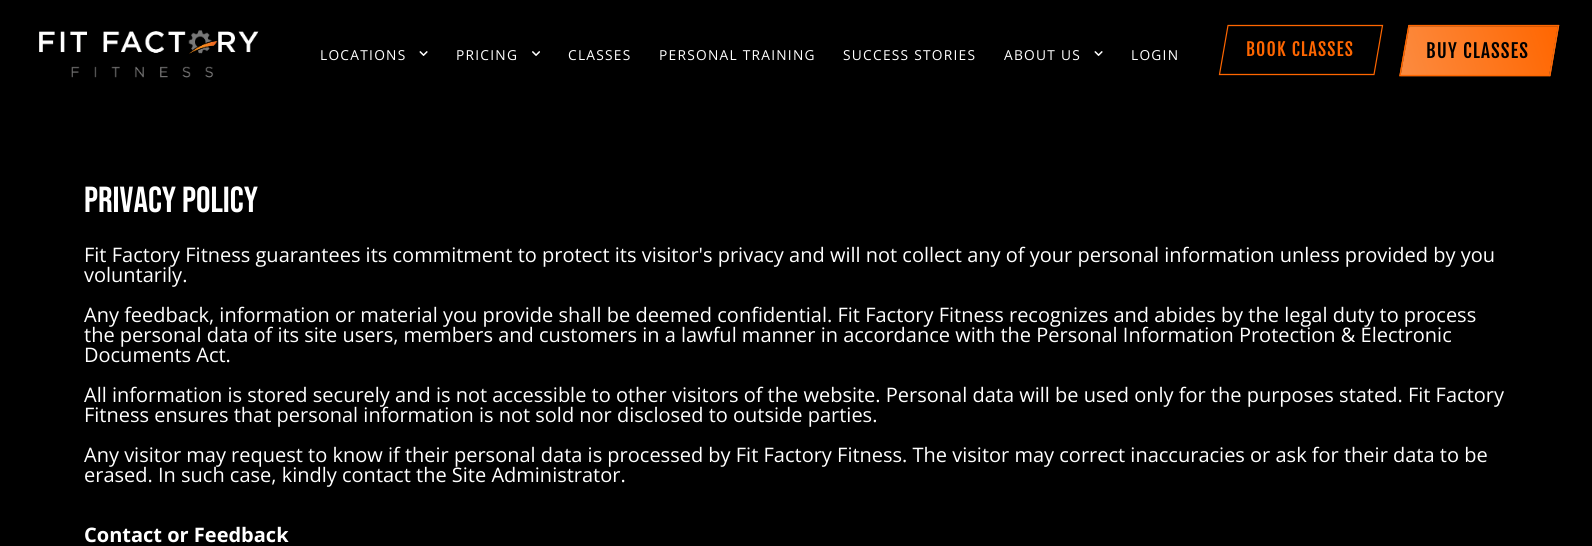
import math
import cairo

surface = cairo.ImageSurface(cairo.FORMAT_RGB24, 1592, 546)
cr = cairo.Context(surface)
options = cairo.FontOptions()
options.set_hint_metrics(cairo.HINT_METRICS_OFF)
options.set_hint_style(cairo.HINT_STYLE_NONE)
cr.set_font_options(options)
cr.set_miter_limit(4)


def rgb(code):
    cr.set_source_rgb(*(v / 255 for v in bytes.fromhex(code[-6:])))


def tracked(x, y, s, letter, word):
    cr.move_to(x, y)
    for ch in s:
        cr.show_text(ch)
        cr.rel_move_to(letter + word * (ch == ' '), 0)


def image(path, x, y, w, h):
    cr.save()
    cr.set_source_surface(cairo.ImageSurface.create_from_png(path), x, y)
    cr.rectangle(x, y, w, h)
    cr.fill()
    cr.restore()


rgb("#000000")
cr.paint()
image("img/1.png", 39, 30, 220, 48)
image("img/2.png", 419, 51, 9, 5)
image("img/3.png", 532, 51, 8, 5)
image("img/2.png", 1094, 51, 9, 5)
cr.new_path()
cr.move_to(1228, 25.5)
cr.line_to(1382.5, 25.5)
cr.line_to(1374, 74.5)
cr.line_to(1219.5, 74.5)
cr.close_path()
rgb("#ff6600")
cr.set_line_width(1.2)
cr.stroke()
image("img/4.png", 1399, 25, 161, 52)
cr.new_path()
cr.move_to(1409, 25.5)
cr.line_to(1558.5, 25.5)
cr.line_to(1550, 75.5)
cr.line_to(1400, 75.5)
cr.close_path()
cr.stroke()
cr.select_font_face("Open Sans")
cr.set_font_size(13.75)
rgb("#ffffff")
for x, y, s in [
    (320, 60, "LOCATIONS"),
    (456, 60, "PRICING"),
    (568, 60, "CLASSES"),
    (659, 60, "PERSONAL TRAINING"),
    (843, 60, "SUCCESS STORIES"),
    (1004, 60, "ABOUT US"),
    (1131, 60, "LOGIN"),
]:
    tracked(x, y, s, 1.25, 0)
cr.select_font_face("Fjalla One")
cr.set_font_size(17.75)
rgb("#ff6600")
tracked(1246, 56, "BOOK CLASSES", 1.1, 0)
cr.set_font_size(19)
rgb("#000000")
tracked(1426, 58, "BUY CLASSES", 1.1, 0)
cr.select_font_face("Bebas Neue")
cr.set_font_size(36.25)
rgb("#ffffff")
cr.move_to(84, 212)
cr.show_text("Privacy Policy")
cr.select_font_face("Open Sans")
cr.set_font_size(20)
for x, y, s in [
    (84, 262, "Fit Factory Fitness guarantees its commitment to protect its visitor's privacy and will not collect any of your personal information unless provided by you"),
    (84, 282, "voluntarily."),
    (84, 322, "Any feedback, information or material you provide shall be deemed confidential. Fit Factory Fitness recognizes and abides by the legal duty to process"),
    (84, 342, "the personal data of its site users, members and customers in a lawful manner in accordance with the Personal Information Protection & Electronic"),
    (84, 362, "Documents Act."),
    (84, 402, "All information is stored securely and is not accessible to other visitors of the website. Personal data will be used only for the purposes stated. Fit Factory"),
    (84, 422, "Fitness ensures that personal information is not sold nor disclosed to outside parties."),
    (84, 462, "Any visitor may request to know if their personal data is processed by Fit Factory Fitness. The visitor may correct inaccuracies or ask for their data to be"),
    (84, 482, "erased. In such case, kindly contact the Site Administrator."),
]:
    cr.move_to(x, y)
    cr.show_text(s)
cr.select_font_face("Open Sans", cairo.FONT_SLANT_NORMAL, cairo.FONT_WEIGHT_BOLD)
cr.move_to(84, 542)
cr.show_text("Contact or Feedback")
surface.write_to_png("page.png")
